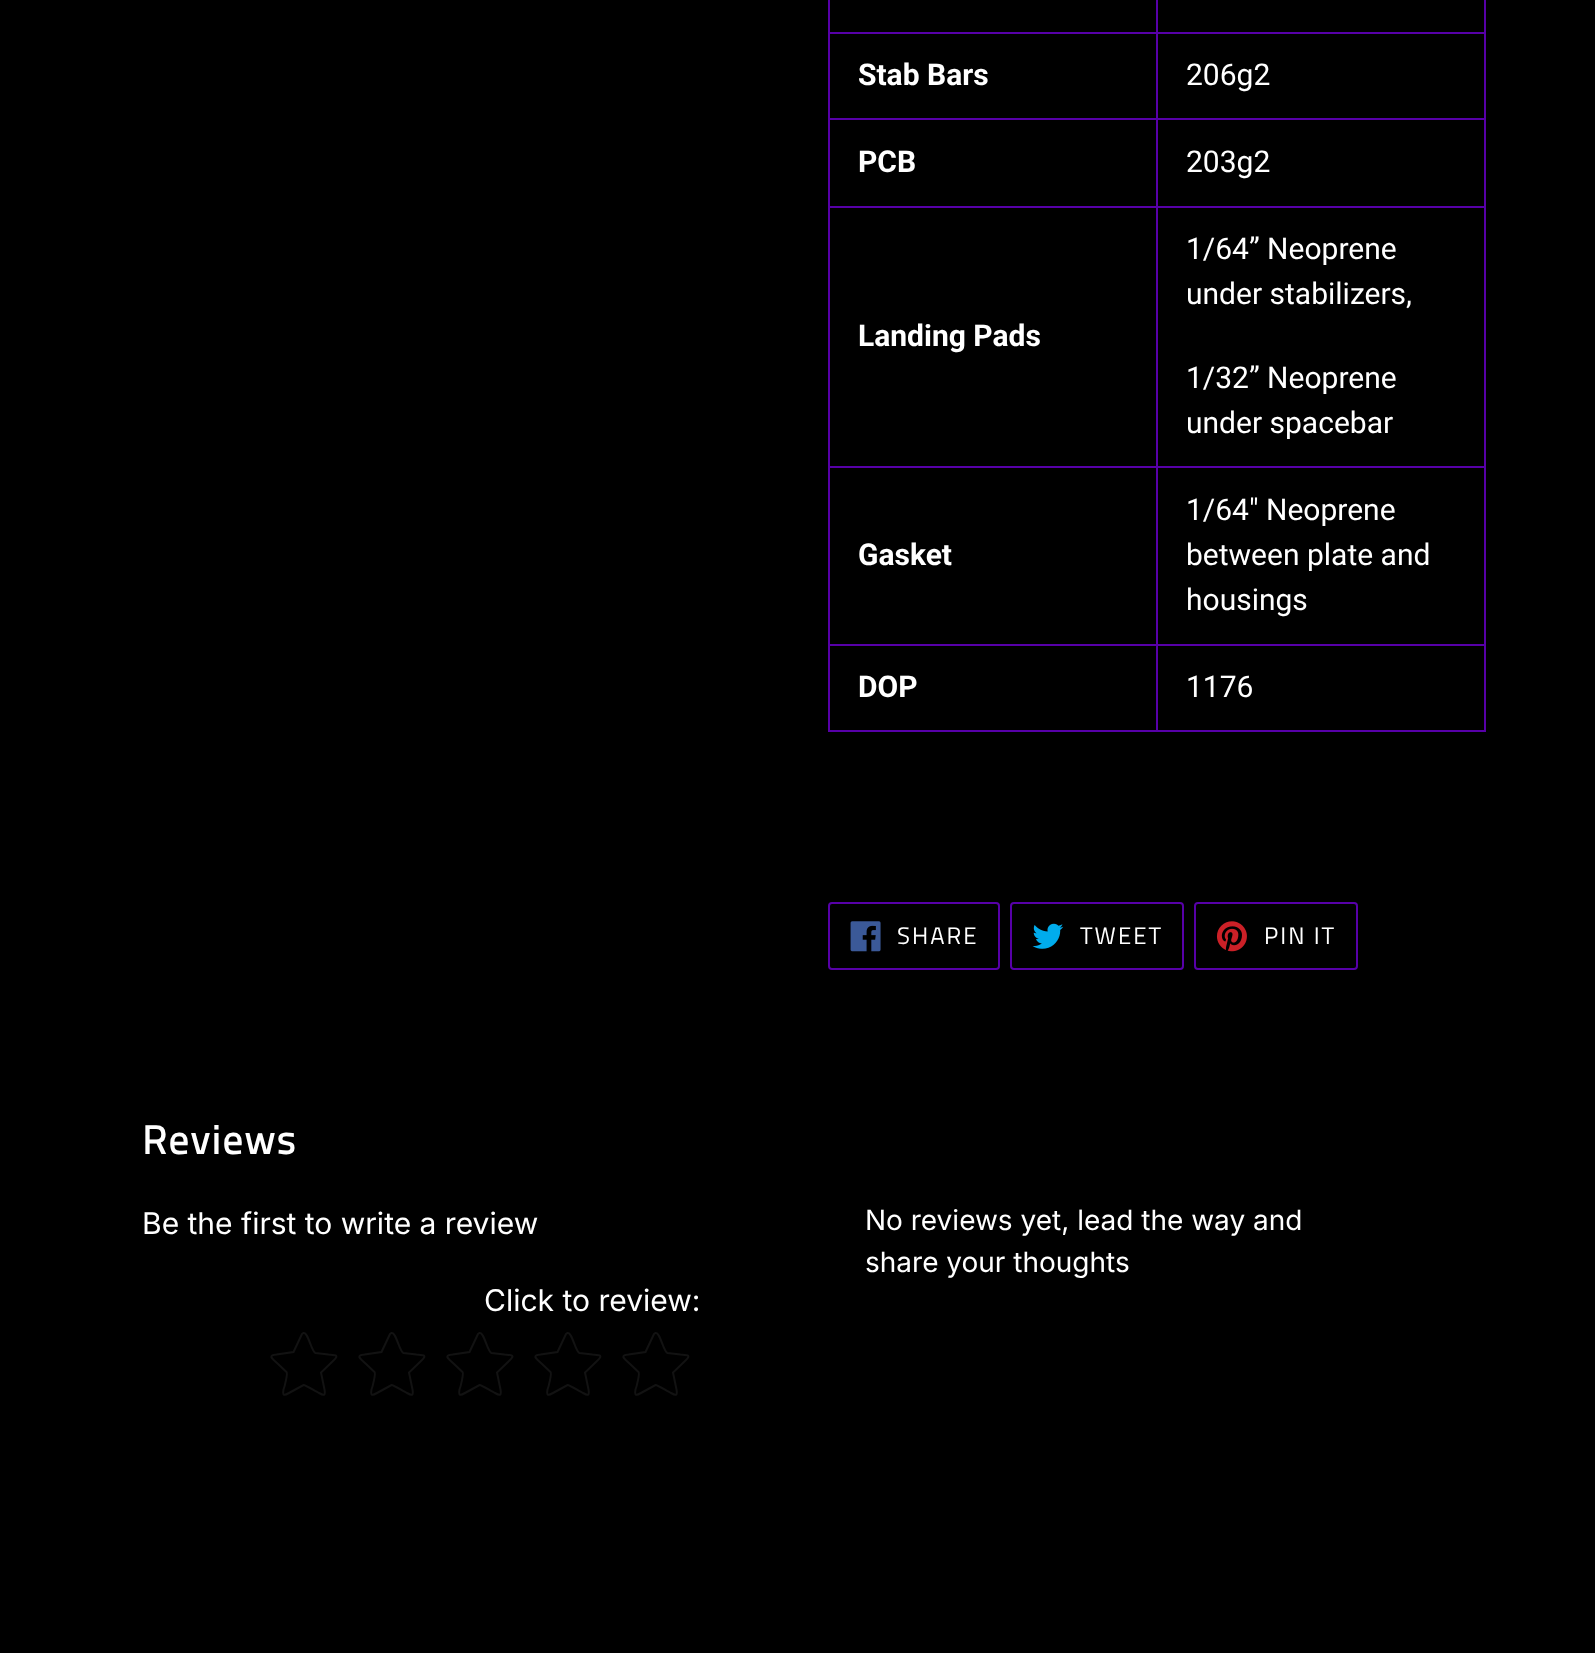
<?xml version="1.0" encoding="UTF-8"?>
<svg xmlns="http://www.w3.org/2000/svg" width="1595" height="1653">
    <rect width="100%" height="100%" fill="#000000"/>
    <rect x="1156" y="32" width="330" height="2" fill="#5700A8"/>
    <rect x="1156" y="118" width="330" height="2" fill="#5700A8"/>
    <rect x="1156" y="206" width="330" height="2" fill="#5700A8"/>
    <rect x="1156" y="466" width="330" height="2" fill="#5700A8"/>
    <rect x="1156" y="644" width="330" height="2" fill="#5700A8"/>
    <rect x="1484" y="644" width="2" height="88" fill="#5700A8"/>
    <rect x="1156" y="730" width="330" height="2" fill="#5700A8"/>
    <rect x="1156" y="644" width="2" height="88" fill="#5700A8"/>
    <rect x="828" y="644" width="330" height="2" fill="#5700A8"/>
    <rect x="1156" y="466" width="2" height="180" fill="#5700A8"/>
    <rect x="828" y="466" width="330" height="2" fill="#5700A8"/>
    <rect x="1156" y="206" width="2" height="262" fill="#5700A8"/>
    <rect x="828" y="206" width="330" height="2" fill="#5700A8"/>
    <rect x="1156" y="118" width="2" height="90" fill="#5700A8"/>
    <rect x="828" y="118" width="330" height="2" fill="#5700A8"/>
    <rect x="1156" y="32" width="2" height="88" fill="#5700A8"/>
    <rect x="828" y="32" width="330" height="2" fill="#5700A8"/>
    <rect x="1156" y="0" width="2" height="34" fill="#5700A8"/>
    <rect x="828" y="730" width="330" height="2" fill="#5700A8"/>
    <rect x="828" y="644" width="2" height="88" fill="#5700A8"/>
    <rect x="828" y="466" width="2" height="180" fill="#5700A8"/>
    <rect x="828" y="206" width="2" height="262" fill="#5700A8"/>
    <rect x="828" y="118" width="2" height="90" fill="#5700A8"/>
    <rect x="828" y="0" width="2" height="120" fill="#5700A8"/>
    <text x="858" y="85" font-family="Roboto" font-size="30" font-weight="700" fill="#FFFFFF">Stab Bars</text>
    <rect x="1484" y="466" width="2" height="180" fill="#5700A8"/>
    <rect x="1484" y="206" width="2" height="262" fill="#5700A8"/>
    <rect x="1484" y="118" width="2" height="90" fill="#5700A8"/>
    <rect x="1484" y="0" width="2" height="120" fill="#5700A8"/>
    <text x="1186" y="85" font-family="Roboto" font-size="30" fill="#FFFFFF">206g2</text>
    <text x="858" y="172" font-family="Roboto" font-size="30" font-weight="700" fill="#FFFFFF">PCB</text>
    <text x="1186" y="172" font-family="Roboto" font-size="30" fill="#FFFFFF">203g2</text>
    <text x="858" y="346" font-family="Roboto" font-size="30" font-weight="700" fill="#FFFFFF">Landing Pads</text>
    <text font-family="Roboto" font-size="30" fill="#FFFFFF">
        <tspan x="1186" y="259">1/64” Neoprene</tspan>
        <tspan x="1186" y="304">under stabilizers,</tspan>
    </text>
    <text font-family="Roboto" font-size="30" fill="#FFFFFF">
        <tspan x="1186" y="388">1/32” Neoprene</tspan>
        <tspan x="1186" y="433">under spacebar</tspan>
    </text>
    <text x="858" y="565" font-family="Roboto" font-size="30" font-weight="700" fill="#FFFFFF">Gasket</text>
    <text font-family="Roboto" font-size="30" fill="#FFFFFF">
        <tspan x="1186" y="520">1/64" Neoprene</tspan>
        <tspan x="1186" y="565">between plate and</tspan>
        <tspan x="1186" y="610">housings</tspan>
    </text>
    <text x="858" y="697" font-family="Roboto" font-size="30" font-weight="700" fill="#FFFFFF">DOP</text>
    <text x="1186" y="697" font-family="Roboto" font-size="30" fill="#FFFFFF">1176</text>
    <rect x="829" y="903" width="170" height="66" rx="3" fill="none" stroke="#5700A8" stroke-width="2"/>
    <image x="850" y="921" width="31" height="31" href="img_01.png"/>
    <text x="897" y="944" font-family="Titillium Web" font-size="24" letter-spacing="2" fill="#FFFFFF">SHARE</text>
    <rect x="1011" y="903" width="172" height="66" rx="3" fill="none" stroke="#5700A8" stroke-width="2"/>
    <image x="1032" y="923" width="32" height="26" href="img_02.png"/>
    <text x="1080" y="944" font-family="Titillium Web" font-size="24" letter-spacing="2" fill="#FFFFFF">TWEET</text>
    <rect x="1195" y="903" width="162" height="66" rx="3" fill="none" stroke="#5700A8" stroke-width="2"/>
    <image x="1216" y="921" width="31" height="31" href="img_03.png"/>
    <text x="1264" y="944" font-family="Titillium Web" font-size="24" letter-spacing="2" fill="#FFFFFF">PIN IT</text>
    <text x="142" y="1154" font-family="Titillium Web" font-size="40" font-weight="700" letter-spacing="2" fill="#FFFFFF">Reviews</text>
    <text x="142" y="1234" font-family="Inter" font-size="30" fill="#FFFFFF">Be the first to write a review</text>
    <text x="484" y="1311" font-family="Inter" font-size="30" fill="#FFFFFF">Click to review:</text>
    <path d="M 302 1334 L 303.5 1333 C 308 1331.5 311.5 1352 315.5 1353 L 328.5 1354.5 C 334.5 1355 340 1354.5 333.5 1360.5 L 321 1372.5 L 324.5 1389.5 C 325.5 1395.5 324.5 1396 319 1393 C 316.5 1392 305.5 1385 303.5 1385 L 289 1393 C 283.5 1396 282.5 1395.5 283.5 1389.5 C 284.5 1387 288 1373.5 286.5 1372 L 277 1363 C 272 1358.5 267.5 1355.5 276.5 1354.5 L 293.5 1352 Z" fill="none" stroke="#121212" stroke-width="2"/>
    <path d="M 390 1334 L 391.5 1333 C 396 1331.5 399.5 1352 403.5 1353 L 416.5 1354.5 C 422.5 1355 428 1354.5 421.5 1360.5 L 409 1372.5 L 412.5 1389.5 C 413.5 1395.5 412.5 1396 407 1393 C 404.5 1392 393.5 1385 391.5 1385 L 377 1393 C 371.5 1396 370.5 1395.5 371.5 1389.5 C 372.5 1387 376 1373.5 374.5 1372 L 365 1363 C 360 1358.5 355.5 1355.5 364.5 1354.5 L 381.5 1352 Z" fill="none" stroke="#121212" stroke-width="2"/>
    <path d="M 478 1334 L 479.5 1333 C 484 1331.5 487.5 1352 491.5 1353 L 504.5 1354.5 C 510.5 1355 516 1354.5 509.5 1360.5 L 497 1372.5 L 500.5 1389.5 C 501.5 1395.5 500.5 1396 495 1393 C 492.5 1392 481.5 1385 479.5 1385 L 465 1393 C 459.5 1396 458.5 1395.5 459.5 1389.5 C 460.5 1387 464 1373.5 462.5 1372 L 453 1363 C 448 1358.5 443.5 1355.5 452.5 1354.5 L 469.5 1352 Z" fill="none" stroke="#121212" stroke-width="2"/>
    <path d="M 566 1334 L 567.5 1333 C 572 1331.5 575.5 1352 579.5 1353 L 592.5 1354.5 C 598.5 1355 604 1354.5 597.5 1360.5 L 585 1372.5 L 588.5 1389.5 C 589.5 1395.5 588.5 1396 583 1393 C 580.5 1392 569.5 1385 567.5 1385 L 553 1393 C 547.5 1396 546.5 1395.5 547.5 1389.5 C 548.5 1387 552 1373.5 550.5 1372 L 541 1363 C 536 1358.5 531.5 1355.5 540.5 1354.5 L 557.5 1352 Z" fill="none" stroke="#121212" stroke-width="2"/>
    <path d="M 654 1334 L 655.5 1333 C 660 1331.5 663.5 1352 667.5 1353 L 680.5 1354.5 C 686.5 1355 692 1354.5 685.5 1360.5 L 673 1372.5 L 676.5 1389.5 C 677.5 1395.5 676.5 1396 671 1393 C 668.5 1392 657.5 1385 655.5 1385 L 641 1393 C 635.5 1396 634.5 1395.5 635.5 1389.5 C 636.5 1387 640 1373.5 638.5 1372 L 629 1363 C 624 1358.5 619.5 1355.5 628.5 1354.5 L 645.5 1352 Z" fill="none" stroke="#121212" stroke-width="2"/>
    <text font-family="Inter" font-size="28" fill="#FFFFFF">
        <tspan x="865" y="1230">No reviews yet, lead the way and</tspan>
        <tspan x="865" y="1272">share your thoughts</tspan>
    </text>
</svg>
